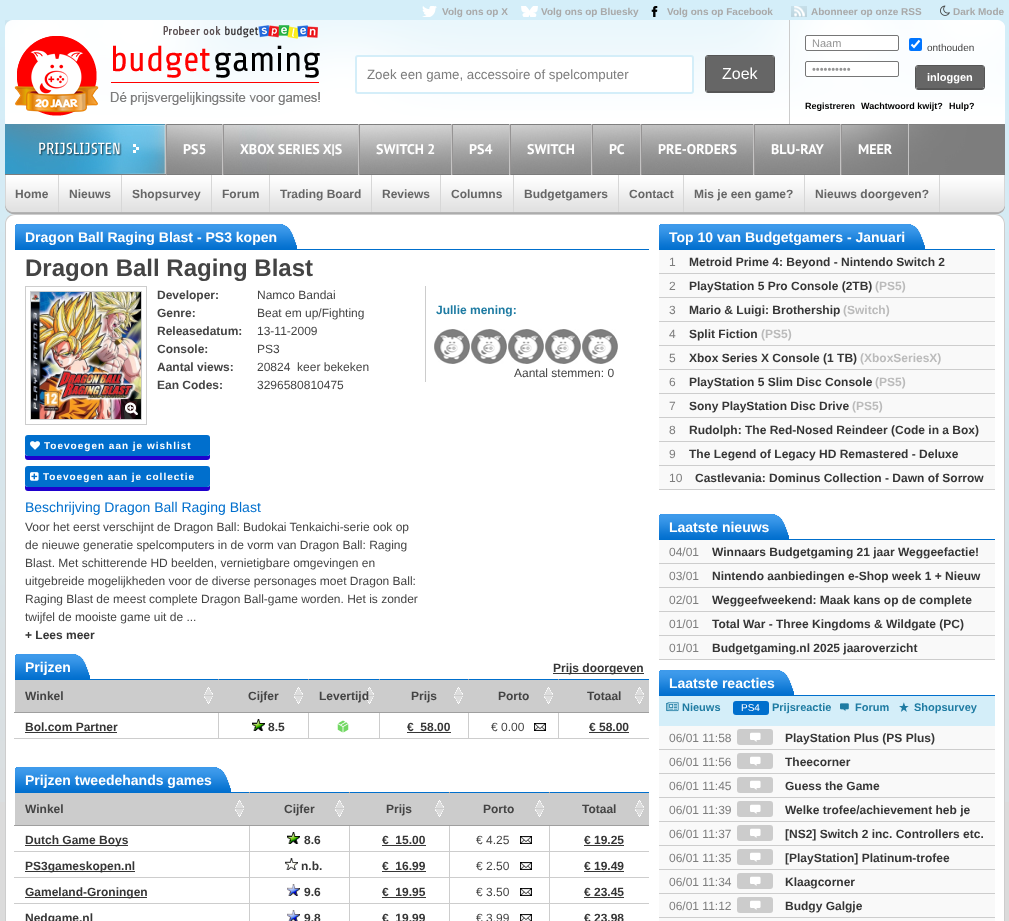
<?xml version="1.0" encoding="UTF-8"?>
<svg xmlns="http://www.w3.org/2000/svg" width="1009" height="921">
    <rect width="100%" height="100%" fill="#DBDBDB"/>
    <image x="0" y="0" width="1009" height="802" href="img_01.png"/>
    <image x="422" y="6" width="15" height="11" href="img_02.png"/>
    <text x="442" y="15" font-family="Liberation Sans" font-size="10" font-weight="700" fill="#A9A9A9">Volg ons op X</text>
    <image x="521" y="6" width="17" height="11" href="img_03.png"/>
    <text x="541" y="15" font-family="Liberation Sans" font-size="10" font-weight="700" fill="#A9A9A9">Volg ons op Bluesky</text>
    <image x="651" y="6" width="7" height="11" href="img_04.png"/>
    <text x="667" y="15" font-family="Liberation Sans" font-size="10" font-weight="700" fill="#A9A9A9">Volg ons op Facebook</text>
    <image x="791" y="6" width="16" height="11" href="img_05.png"/>
    <text x="811" y="15" font-family="Liberation Sans" font-size="10" font-weight="700" fill="#A9A9A9">Abonneer op onze RSS</text>
    <image x="940" y="5" width="10" height="11" href="img_06.png"/>
    <text x="953" y="15" font-family="Liberation Sans" font-size="10" font-weight="700" fill="#A9A9A9">Dark Mode</text>
    <image x="5" y="20" width="1000" height="104" href="img_07.png"/>
    <image x="14" y="36" width="306" height="80" href="img_09.png"/>
    <image x="163" y="25" width="155" height="14" href="img_08.png"/>
    <rect x="356" y="56" width="337" height="37" rx="2" fill="#FFFFFF" stroke="#D4EEF9" stroke-width="2"/>
    <text x="367" y="79" font-family="Liberation Sans" font-size="13.3" fill="#7D7D7D">Zoek een game, accessoire of spelcomputer</text>
    <path d="M 708 56 H 772 C 773 56 774 57 774 58 V 90 C 774 91 773 91 772 91 H 708 C 707 91 706 91 706 90 V 58 C 706 57 707 56 708 56 Z" fill="#666666"/>
    <rect x="705.5" y="55.5" width="69" height="37" rx="2.5" fill="none" stroke="#555555"/>
    <rect x="707" y="91" width="67" height="1" fill="#555555"/>
    <text x="722" y="79" font-family="Liberation Sans" font-size="16" fill="#FFFFFF">Zoek</text>
    <rect x="789" y="20" width="1" height="104" fill="#CCCCCC"/>
    <rect x="805.5" y="35.5" width="93" height="15" rx="1.5" fill="#FFFFFF" stroke="#767676"/>
    <text x="812" y="47" font-family="Liberation Sans" font-size="11" fill="#959595">Naam</text>
    <rect x="805.5" y="61.5" width="93" height="15" rx="1.5" fill="#FFFFFF" stroke="#767676"/>
    <text x="812" y="73" font-family="Liberation Sans" font-size="11" fill="#959595">••••••••••</text>
    <rect x="909" y="38" width="13" height="13" rx="2" fill="#0075FF"/>
    <path d="M 911.5 44.5 L 914 47 L 919.5 40.5" fill="none" stroke="#FFFFFF" stroke-width="2.1"/>
    <text x="927" y="51" font-family="Liberation Sans" font-size="10" fill="#444444">onthouden</text>
    <path d="M 918 66 H 983 C 985 68 984 72 984 74 C 984 91 988 88 971 88 H 929 C 912 88 916 91 916 74 C 916 73 915 66 918 66 Z" fill="#666666"/>
    <rect x="915.5" y="65.5" width="69" height="24" rx="2.5" fill="none" stroke="#555555"/>
    <rect x="917" y="88" width="67" height="1" fill="#555555"/>
    <text x="927" y="81" font-family="Liberation Sans" font-size="11" font-weight="700" fill="#FFFFFF">inloggen</text>
    <text x="805" y="109" font-family="Liberation Sans" font-size="9" font-weight="700" fill="#000000">Registreren</text>
    <text x="861" y="109" font-family="Liberation Sans" font-size="9" font-weight="700" fill="#000000">Wachtwoord kwijt?</text>
    <text x="949" y="109" font-family="Liberation Sans" font-size="9" font-weight="700" fill="#000000">Hulp?</text>
    <image x="5" y="124" width="1000" height="50" href="img_10.png"/>
    <rect x="165" y="124" width="1" height="50" fill="#C4C3C3"/>
    <image x="5" y="174" width="1000" height="40" href="img_11.png"/>
    <rect x="222" y="124" width="1" height="51" fill="#C4C3C3"/>
    <rect x="166" y="124" width="1" height="51" fill="#969494"/>
    <text x="183" y="154" font-family="PT Sans" font-size="14" font-weight="700" fill="#FFFFFF">PS5</text>
    <rect x="358" y="124" width="1" height="51" fill="#C4C3C3"/>
    <rect x="223" y="124" width="1" height="51" fill="#969494"/>
    <rect x="239" y="124" width="22" height="1" fill="#807E7E"/>
    <text x="240" y="154" font-family="PT Sans" font-size="14" font-weight="700" fill="#FFFFFF">XBOX SERIES X|S</text>
    <rect x="451" y="124" width="1" height="51" fill="#C4C3C3"/>
    <rect x="359" y="124" width="1" height="51" fill="#969494"/>
    <text x="376" y="154" font-family="PT Sans" font-size="14" font-weight="700" fill="#FFFFFF">SWITCH 2</text>
    <rect x="509" y="124" width="1" height="51" fill="#C4C3C3"/>
    <rect x="452" y="124" width="1" height="51" fill="#969494"/>
    <text x="469" y="154" font-family="PT Sans" font-size="14" font-weight="700" fill="#FFFFFF">PS4</text>
    <rect x="591" y="124" width="1" height="51" fill="#C4C3C3"/>
    <rect x="510" y="124" width="1" height="51" fill="#969494"/>
    <text x="527" y="154" font-family="PT Sans" font-size="14" font-weight="700" fill="#FFFFFF">SWITCH</text>
    <rect x="640" y="124" width="1" height="51" fill="#C4C3C3"/>
    <rect x="592" y="124" width="1" height="51" fill="#969494"/>
    <text x="609" y="154" font-family="PT Sans" font-size="14" font-weight="700" fill="#FFFFFF">PC</text>
    <rect x="753" y="124" width="1" height="51" fill="#C4C3C3"/>
    <rect x="641" y="124" width="1" height="51" fill="#969494"/>
    <text x="658" y="154" font-family="PT Sans" font-size="14" font-weight="700" fill="#FFFFFF">PRE-ORDERS</text>
    <rect x="840" y="124" width="1" height="51" fill="#C4C3C3"/>
    <rect x="754" y="124" width="1" height="51" fill="#969494"/>
    <text x="771" y="154" font-family="PT Sans" font-size="14" font-weight="700" fill="#FFFFFF">BLU-RAY</text>
    <rect x="908" y="124" width="1" height="51" fill="#C4C3C3"/>
    <rect x="841" y="124" width="1" height="51" fill="#969494"/>
    <text x="858" y="154" font-family="PT Sans" font-size="14" font-weight="700" fill="#FFFFFF">MEER</text>
    <rect x="58" y="175" width="1" height="37" fill="#D7D7D7"/>
    <text x="15" y="198" font-family="Liberation Sans" font-size="12" font-weight="700" fill="#666666">Home</text>
    <rect x="121" y="175" width="1" height="37" fill="#D7D7D7"/>
    <text x="69" y="198" font-family="Liberation Sans" font-size="12" font-weight="700" fill="#666666">Nieuws</text>
    <rect x="211" y="175" width="1" height="37" fill="#D7D7D7"/>
    <text x="132" y="198" font-family="Liberation Sans" font-size="12" font-weight="700" fill="#666666">Shopsurvey</text>
    <rect x="269" y="175" width="1" height="37" fill="#D7D7D7"/>
    <text x="222" y="198" font-family="Liberation Sans" font-size="12" font-weight="700" fill="#666666">Forum</text>
    <rect x="371" y="175" width="1" height="37" fill="#D7D7D7"/>
    <text x="280" y="198" font-family="Liberation Sans" font-size="12" font-weight="700" fill="#666666">Trading Board</text>
    <rect x="440" y="175" width="1" height="37" fill="#D7D7D7"/>
    <text x="382" y="198" font-family="Liberation Sans" font-size="12" font-weight="700" fill="#666666">Reviews</text>
    <rect x="513" y="175" width="1" height="37" fill="#D7D7D7"/>
    <text x="451" y="198" font-family="Liberation Sans" font-size="12" font-weight="700" fill="#666666">Columns</text>
    <rect x="618" y="175" width="1" height="37" fill="#D7D7D7"/>
    <text x="524" y="198" font-family="Liberation Sans" font-size="12" font-weight="700" fill="#666666">Budgetgamers</text>
    <rect x="683" y="175" width="1" height="37" fill="#D7D7D7"/>
    <text x="629" y="198" font-family="Liberation Sans" font-size="12" font-weight="700" fill="#666666">Contact</text>
    <rect x="804" y="175" width="1" height="37" fill="#D7D7D7"/>
    <text x="694" y="198" font-family="Liberation Sans" font-size="12" font-weight="700" fill="#666666">Mis je een game?</text>
    <rect x="939" y="175" width="1" height="37" fill="#D7D7D7"/>
    <text x="815" y="198" font-family="Liberation Sans" font-size="12" font-weight="700" fill="#666666">Nieuws doorgeven?</text>
    <path d="M 15 214 H 995 C 1000.5 214 1005 218.5 1005 224 V 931 H 5 V 224 C 5 218.5 9.5 214 15 214 Z" fill="#FFFFFF"/>
    <path d="M 15 214 H 995 C 1001 214 1005 218 1005 224 V 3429 H 5 V 224 C 5 218 9 214 15 214 Z M 15 215 H 995 C 1000 215 1004 219 1004 224 V 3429 H 6 V 224 C 6 219 10 215 15 215 Z" fill="#CDCDCD" fill-rule="evenodd"/>
    <rect x="15" y="249" width="634" height="1" fill="#006FCD"/>
    <image x="25" y="224" width="272" height="25" href="img_12.png"/>
    <image x="15" y="224" width="10" height="25" href="img_13.png"/>
    <text x="25" y="242" font-family="Liberation Sans" font-size="14" font-weight="700" fill="#FFFFFF">Dragon Ball Raging Blast - PS3 kopen</text>
    <text x="25" y="276" font-family="Liberation Sans" font-size="24" font-weight="700" fill="#444444">Dragon Ball Raging Blast</text>
    <rect x="25.5" y="286.5" width="121" height="138" fill="none" stroke="#CDCDCD"/>
    <rect x="30.5" y="291.5" width="111" height="128" fill="none" stroke="#CDCDCD"/>
    <image x="31" y="292" width="110" height="127" href="img_14.png"/>
    <image x="121" y="399" width="20" height="20" href="img_15.png"/>
    <text x="157" y="299" font-family="Liberation Sans" font-size="12" font-weight="700" fill="#444444">Developer:</text>
    <text x="257" y="299" font-family="Liberation Sans" font-size="12" fill="#444444">Namco Bandai</text>
    <text x="157" y="317" font-family="Liberation Sans" font-size="12" font-weight="700" fill="#444444">Genre:</text>
    <text x="257" y="317" font-family="Liberation Sans" font-size="12" fill="#444444">Beat em up/Fighting</text>
    <text x="157" y="335" font-family="Liberation Sans" font-size="12" font-weight="700" fill="#444444">Releasedatum:</text>
    <text x="257" y="335" font-family="Liberation Sans" font-size="12" fill="#444444">13-11-2009</text>
    <text x="157" y="353" font-family="Liberation Sans" font-size="12" font-weight="700" fill="#444444">Console:</text>
    <text x="257" y="353" font-family="Liberation Sans" font-size="12" fill="#444444">PS3</text>
    <text x="157" y="371" font-family="Liberation Sans" font-size="12" font-weight="700" fill="#444444">Aantal views:</text>
    <text x="257" y="371" font-family="Liberation Sans" font-size="12" fill="#444444" xml:space="preserve">20824  keer bekeken</text>
    <text x="157" y="389" font-family="Liberation Sans" font-size="12" font-weight="700" fill="#444444">Ean Codes:</text>
    <text x="257" y="389" font-family="Liberation Sans" font-size="12" fill="#444444">3296580810475</text>
    <path d="M 25 453 V 457 C 25 459 26 460 28 460 H 207 C 209 460 210 459 210 457 V 453 C 210 455 209 456 207 456 H 28 C 26 456 25 455 25 453 Z" fill="#1F00CD"/>
    <rect x="25" y="435" width="185" height="21" rx="3" fill="#006FCD"/>
    <image x="30" y="441" width="10" height="9" href="img_16.png"/>
    <text x="44" y="449" font-family="Liberation Sans" font-size="10" font-weight="700" letter-spacing="1" fill="#FFFFFF">Toevoegen aan je wishlist</text>
    <path d="M 25 484 V 488 C 25 490 26 491 28 491 H 207 C 209 491 210 490 210 488 V 484 C 210 486 209 487 207 487 H 28 C 26 487 25 486 25 484 Z" fill="#1F00CD"/>
    <rect x="25" y="466" width="185" height="21" rx="3" fill="#006FCD"/>
    <image x="30" y="472" width="9" height="9" href="img_17.png"/>
    <text x="43" y="480" font-family="Liberation Sans" font-size="10" font-weight="700" letter-spacing="1" fill="#FFFFFF">Toevoegen aan je collectie</text>
    <text x="25" y="512" font-family="Liberation Sans" font-size="14" fill="#006FCD">Beschrijving Dragon Ball Raging Blast</text>
    <text font-family="Liberation Sans" font-size="12" fill="#444444">
        <tspan x="25" y="531">Voor het eerst verschijnt de Dragon Ball: Budokai Tenkaichi-serie ook op</tspan>
        <tspan x="25" y="549">de nieuwe generatie spelcomputers in de vorm van Dragon Ball: Raging</tspan>
        <tspan x="25" y="567">Blast. Met schitterende HD beelden, vernietigbare omgevingen en</tspan>
        <tspan x="25" y="585">uitgebreide mogelijkheden voor de diverse personages moet Dragon Ball:</tspan>
        <tspan x="25" y="603">Raging Blast de meest complete Dragon Ball-game worden. Het is zonder</tspan>
        <tspan x="25" y="621">twijfel de mooiste game uit de ...</tspan>
    </text>
    <text x="25" y="639" font-family="Liberation Sans" font-size="12" font-weight="700" fill="#363636">+ Lees meer</text>
    <rect x="425" y="286" width="1" height="96" fill="#CCCCCC"/>
    <text x="436" y="314" font-family="Liberation Sans" font-size="12" font-weight="700" fill="#1E7BA2">Jullie mening:</text>
    <image x="434" y="329" width="36" height="35" href="img_18.png"/>
    <image x="471" y="329" width="36" height="35" href="img_19.png"/>
    <image x="508" y="329" width="36" height="35" href="img_19.png"/>
    <image x="545" y="329" width="36" height="35" href="img_19.png"/>
    <image x="582" y="329" width="36" height="35" href="img_19.png"/>
    <text x="514" y="377" font-family="Liberation Sans" font-size="12" fill="#444444">Aantal stemmen: 0</text>
    <rect x="15" y="679" width="634" height="1" fill="#006FCD"/>
    <image x="25" y="654" width="65" height="25" href="img_20.png"/>
    <image x="15" y="654" width="10" height="25" href="img_21.png"/>
    <text x="25" y="672" font-family="Liberation Sans" font-size="14" font-weight="700" fill="#FFFFFF">Prijzen</text>
    <rect x="553" y="673" width="91" height="1" fill="#363636"/>
    <text x="553" y="672" font-family="Liberation Sans" font-size="12" font-weight="700" fill="#363636">Prijs doorgeven</text>
    <rect x="15" y="680" width="634" height="32" fill="#CCCCCC"/>
    <image x="204" y="687" width="9" height="17" href="img_22.png"/>
    <text x="25" y="700" font-family="Liberation Sans" font-size="12" font-weight="700" fill="#444444">Winkel</text>
    <rect x="218" y="679" width="1" height="1" fill="#9F9F9F"/>
    <image x="294" y="687" width="9" height="17" href="img_22.png"/>
    <text x="248" y="700" font-family="Liberation Sans" font-size="12" font-weight="700" fill="#444444">Cijfer</text>
    <rect x="308" y="679" width="1" height="1" fill="#9F9F9F"/>
    <image x="365" y="687" width="9" height="17" href="img_22.png"/>
    <text x="319" y="700" font-family="Liberation Sans" font-size="12" font-weight="700" fill="#444444">Levertijd</text>
    <rect x="379" y="679" width="1" height="1" fill="#9F9F9F"/>
    <image x="454" y="687" width="9" height="17" href="img_22.png"/>
    <text x="411" y="700" font-family="Liberation Sans" font-size="12" font-weight="700" fill="#444444">Prijs</text>
    <rect x="468" y="679" width="1" height="1" fill="#9F9F9F"/>
    <image x="544" y="687" width="9" height="17" href="img_22.png"/>
    <text x="498" y="700" font-family="Liberation Sans" font-size="12" font-weight="700" fill="#444444">Porto</text>
    <rect x="558" y="738" width="91" height="1" fill="#CDCDCD"/>
    <rect x="558" y="712" width="1" height="27" fill="#CDCDCD"/>
    <rect x="468" y="738" width="91" height="1" fill="#CDCDCD"/>
    <rect x="468" y="712" width="1" height="27" fill="#CDCDCD"/>
    <rect x="379" y="738" width="90" height="1" fill="#CDCDCD"/>
    <rect x="379" y="712" width="1" height="27" fill="#CDCDCD"/>
    <rect x="308" y="738" width="72" height="1" fill="#CDCDCD"/>
    <rect x="308" y="712" width="1" height="27" fill="#CDCDCD"/>
    <rect x="218" y="738" width="91" height="1" fill="#CDCDCD"/>
    <rect x="218" y="712" width="1" height="27" fill="#CDCDCD"/>
    <rect x="14" y="712" width="635" height="1" fill="#9F9F9F"/>
    <rect x="558" y="679" width="1" height="1" fill="#9F9F9F"/>
    <image x="635" y="687" width="9" height="17" href="img_22.png"/>
    <text x="587" y="700" font-family="Liberation Sans" font-size="12" font-weight="700" fill="#444444">Totaal</text>
    <rect x="14" y="738" width="205" height="1" fill="#CDCDCD"/>
    <text x="25" y="731" font-family="Liberation Sans" font-size="12" font-weight="700" fill="#363636">Bol.com Partner</text>
    <rect x="25" y="732" width="92" height="1" fill="#363636"/>
    <image x="252" y="719" width="13" height="12" href="img_23.png"/>
    <text x="268" y="731" font-family="Liberation Sans" font-size="12" font-weight="700" fill="#363636">8.5</text>
    <image x="337" y="720" width="12" height="13" href="img_24.png"/>
    <text x="407" y="731" font-family="Liberation Sans" font-size="12" font-weight="700" fill="#363636" xml:space="preserve">€  58.00</text>
    <rect x="407" y="732" width="44" height="1" fill="#363636"/>
    <text x="491" y="731" font-family="Liberation Sans" font-size="12" fill="#444444">€ 0.00</text>
    <image x="534" y="723" width="12" height="8" href="img_25.png"/>
    <text x="589" y="731" font-family="Liberation Sans" font-size="12" font-weight="700" fill="#363636">€ 58.00</text>
    <rect x="589" y="732" width="40" height="1" fill="#363636"/>
    <rect x="15" y="792" width="634" height="1" fill="#006FCD"/>
    <image x="25" y="767" width="206" height="25" href="img_26.png"/>
    <image x="15" y="767" width="10" height="25" href="img_13.png"/>
    <text x="25" y="785" font-family="Liberation Sans" font-size="14" font-weight="700" fill="#FFFFFF">Prijzen tweedehands games</text>
    <rect x="15" y="793" width="634" height="32" fill="#CCCCCC"/>
    <image x="235" y="800" width="9" height="17" href="img_22.png"/>
    <text x="25" y="813" font-family="Liberation Sans" font-size="12" font-weight="700" fill="#444444">Winkel</text>
    <rect x="249" y="792" width="1" height="1" fill="#9F9F9F"/>
    <image x="335" y="800" width="9" height="17" href="img_22.png"/>
    <text x="284" y="813" font-family="Liberation Sans" font-size="12" font-weight="700" fill="#444444">Cijfer</text>
    <rect x="349" y="792" width="1" height="1" fill="#9F9F9F"/>
    <image x="435" y="800" width="9" height="17" href="img_22.png"/>
    <text x="386" y="813" font-family="Liberation Sans" font-size="12" font-weight="700" fill="#444444">Prijs</text>
    <rect x="449" y="792" width="1" height="1" fill="#9F9F9F"/>
    <image x="535" y="800" width="9" height="17" href="img_22.png"/>
    <text x="483" y="813" font-family="Liberation Sans" font-size="12" font-weight="700" fill="#444444">Porto</text>
    <rect x="549" y="903" width="1" height="18" fill="#CDCDCD"/>
    <rect x="549" y="903" width="100" height="1" fill="#CDCDCD"/>
    <rect x="549" y="877" width="1" height="27" fill="#CDCDCD"/>
    <rect x="549" y="877" width="100" height="1" fill="#CDCDCD"/>
    <rect x="549" y="851" width="1" height="27" fill="#CDCDCD"/>
    <rect x="549" y="851" width="100" height="1" fill="#CDCDCD"/>
    <rect x="549" y="825" width="1" height="27" fill="#CDCDCD"/>
    <rect x="449" y="903" width="1" height="18" fill="#CDCDCD"/>
    <rect x="449" y="903" width="101" height="1" fill="#CDCDCD"/>
    <rect x="449" y="877" width="1" height="27" fill="#CDCDCD"/>
    <rect x="449" y="877" width="101" height="1" fill="#CDCDCD"/>
    <rect x="449" y="851" width="1" height="27" fill="#CDCDCD"/>
    <rect x="449" y="851" width="101" height="1" fill="#CDCDCD"/>
    <rect x="449" y="825" width="1" height="27" fill="#CDCDCD"/>
    <rect x="349" y="903" width="1" height="18" fill="#CDCDCD"/>
    <rect x="349" y="903" width="101" height="1" fill="#CDCDCD"/>
    <rect x="349" y="877" width="1" height="27" fill="#CDCDCD"/>
    <rect x="349" y="877" width="101" height="1" fill="#CDCDCD"/>
    <rect x="349" y="851" width="1" height="27" fill="#CDCDCD"/>
    <rect x="349" y="851" width="101" height="1" fill="#CDCDCD"/>
    <rect x="349" y="825" width="1" height="27" fill="#CDCDCD"/>
    <rect x="249" y="903" width="1" height="18" fill="#CDCDCD"/>
    <rect x="249" y="903" width="101" height="1" fill="#CDCDCD"/>
    <rect x="249" y="877" width="1" height="27" fill="#CDCDCD"/>
    <rect x="249" y="877" width="101" height="1" fill="#CDCDCD"/>
    <rect x="249" y="851" width="1" height="27" fill="#CDCDCD"/>
    <rect x="249" y="851" width="101" height="1" fill="#CDCDCD"/>
    <rect x="249" y="825" width="1" height="27" fill="#CDCDCD"/>
    <rect x="14" y="825" width="635" height="1" fill="#9F9F9F"/>
    <rect x="549" y="792" width="1" height="1" fill="#9F9F9F"/>
    <image x="635" y="800" width="9" height="17" href="img_22.png"/>
    <text x="582" y="813" font-family="Liberation Sans" font-size="12" font-weight="700" fill="#444444">Totaal</text>
    <rect x="14" y="851" width="236" height="1" fill="#CDCDCD"/>
    <rect x="25" y="845" width="103" height="1" fill="#363636"/>
    <text x="25" y="844" font-family="Liberation Sans" font-size="12" font-weight="700" fill="#363636">Dutch Game Boys</text>
    <image x="287" y="832" width="13" height="12" href="img_27.png"/>
    <text x="304" y="844" font-family="Liberation Sans" font-size="12" font-weight="700" fill="#363636">8.6</text>
    <text x="382" y="844" font-family="Liberation Sans" font-size="12" font-weight="700" fill="#363636" xml:space="preserve">€  15.00</text>
    <rect x="382" y="845" width="44" height="1" fill="#363636"/>
    <text x="476" y="844" font-family="Liberation Sans" font-size="12" fill="#444444">€ 4.25</text>
    <image x="520" y="836" width="12" height="8" href="img_25.png"/>
    <text x="584" y="844" font-family="Liberation Sans" font-size="12" font-weight="700" fill="#363636">€ 19.25</text>
    <rect x="584" y="845" width="40" height="1" fill="#363636"/>
    <rect x="14" y="877" width="236" height="1" fill="#CDCDCD"/>
    <rect x="25" y="871" width="110" height="1" fill="#363636"/>
    <text x="25" y="870" font-family="Liberation Sans" font-size="12" font-weight="700" fill="#363636">PS3gameskopen.nl</text>
    <image x="285" y="858" width="13" height="12" href="img_28.png"/>
    <text x="301" y="870" font-family="Liberation Sans" font-size="12" font-weight="700" fill="#363636">n.b.</text>
    <text x="382" y="870" font-family="Liberation Sans" font-size="12" font-weight="700" fill="#363636" xml:space="preserve">€  16.99</text>
    <rect x="382" y="871" width="44" height="1" fill="#363636"/>
    <text x="476" y="870" font-family="Liberation Sans" font-size="12" fill="#444444">€ 2.50</text>
    <image x="520" y="862" width="12" height="8" href="img_25.png"/>
    <text x="584" y="870" font-family="Liberation Sans" font-size="12" font-weight="700" fill="#363636">€ 19.49</text>
    <rect x="584" y="871" width="40" height="1" fill="#363636"/>
    <rect x="14" y="903" width="236" height="1" fill="#CDCDCD"/>
    <rect x="25" y="897" width="122" height="1" fill="#363636"/>
    <text x="25" y="896" font-family="Liberation Sans" font-size="12" font-weight="700" fill="#363636">Gameland-Groningen</text>
    <image x="287" y="884" width="13" height="12" href="img_29.png"/>
    <text x="304" y="896" font-family="Liberation Sans" font-size="12" font-weight="700" fill="#363636">9.6</text>
    <text x="382" y="896" font-family="Liberation Sans" font-size="12" font-weight="700" fill="#363636" xml:space="preserve">€  19.95</text>
    <rect x="382" y="897" width="44" height="1" fill="#363636"/>
    <text x="476" y="896" font-family="Liberation Sans" font-size="12" fill="#444444">€ 3.50</text>
    <image x="520" y="888" width="12" height="8" href="img_25.png"/>
    <text x="584" y="896" font-family="Liberation Sans" font-size="12" font-weight="700" fill="#363636">€ 23.45</text>
    <rect x="584" y="897" width="40" height="1" fill="#363636"/>
    <text x="25" y="922" font-family="Liberation Sans" font-size="12" font-weight="700" fill="#363636">Nedgame.nl</text>
    <image x="287" y="910" width="13" height="11" href="img_30.png"/>
    <text x="304" y="922" font-family="Liberation Sans" font-size="12" font-weight="700" fill="#363636">9.8</text>
    <text x="382" y="922" font-family="Liberation Sans" font-size="12" font-weight="700" fill="#363636" xml:space="preserve">€  19.99</text>
    <text x="476" y="922" font-family="Liberation Sans" font-size="12" fill="#444444">€ 3.99</text>
    <image x="520" y="914" width="12" height="7" href="img_31.png"/>
    <text x="584" y="922" font-family="Liberation Sans" font-size="12" font-weight="700" fill="#363636">€ 23.98</text>
    <rect x="659" y="249" width="336" height="1" fill="#006FCD"/>
    <image x="669" y="224" width="256" height="25" href="img_32.png"/>
    <image x="659" y="224" width="10" height="25" href="img_13.png"/>
    <text x="669" y="242" font-family="Liberation Sans" font-size="14" font-weight="700" fill="#FFFFFF">Top 10 van Budgetgamers - Januari</text>
    <rect x="659" y="250" width="336" height="23" fill="#F9F9F9"/>
    <rect x="659" y="273" width="336" height="1" fill="#CDCDCD"/>
    <text x="669" y="266" font-family="Liberation Sans" font-size="12" fill="#7D7D7D">1</text>
    <text x="689" y="266" font-family="Liberation Sans" font-size="12" font-weight="700" fill="#363636">Metroid Prime 4: Beyond - Nintendo Switch 2</text>
    <rect x="659" y="274" width="336" height="23" fill="#F9F9F9"/>
    <rect x="659" y="297" width="336" height="1" fill="#CDCDCD"/>
    <text x="669" y="290" font-family="Liberation Sans" font-size="12" fill="#7D7D7D">2</text>
    <text x="689" y="290" font-family="Liberation Sans" font-size="12" font-weight="700" fill="#363636">PlayStation 5 Pro Console (2TB)</text>
    <text x="875" y="290" font-family="Liberation Sans" font-size="12" font-weight="700" fill="#BBBBBB">(PS5)</text>
    <rect x="659" y="298" width="336" height="23" fill="#F9F9F9"/>
    <rect x="659" y="321" width="336" height="1" fill="#CDCDCD"/>
    <text x="669" y="314" font-family="Liberation Sans" font-size="12" fill="#7D7D7D">3</text>
    <text x="689" y="314" font-family="Liberation Sans" font-size="12" font-weight="700" fill="#363636">Mario &amp; Luigi: Brothership</text>
    <text x="843" y="314" font-family="Liberation Sans" font-size="12" font-weight="700" fill="#BBBBBB">(Switch)</text>
    <rect x="659" y="322" width="336" height="23" fill="#F9F9F9"/>
    <rect x="659" y="345" width="336" height="1" fill="#CDCDCD"/>
    <text x="669" y="338" font-family="Liberation Sans" font-size="12" fill="#7D7D7D">4</text>
    <text x="689" y="338" font-family="Liberation Sans" font-size="12" font-weight="700" fill="#363636">Split Fiction</text>
    <text x="761" y="338" font-family="Liberation Sans" font-size="12" font-weight="700" fill="#BBBBBB">(PS5)</text>
    <rect x="659" y="346" width="336" height="23" fill="#F9F9F9"/>
    <rect x="659" y="369" width="336" height="1" fill="#CDCDCD"/>
    <text x="669" y="362" font-family="Liberation Sans" font-size="12" fill="#7D7D7D">5</text>
    <text x="689" y="362" font-family="Liberation Sans" font-size="12" font-weight="700" fill="#363636">Xbox Series X Console (1 TB)</text>
    <text x="860" y="362" font-family="Liberation Sans" font-size="12" font-weight="700" fill="#BBBBBB">(XboxSeriesX)</text>
    <rect x="659" y="370" width="336" height="23" fill="#F9F9F9"/>
    <rect x="659" y="393" width="336" height="1" fill="#CDCDCD"/>
    <text x="669" y="386" font-family="Liberation Sans" font-size="12" fill="#7D7D7D">6</text>
    <text x="689" y="386" font-family="Liberation Sans" font-size="12" font-weight="700" fill="#363636">PlayStation 5 Slim Disc Console</text>
    <text x="875" y="386" font-family="Liberation Sans" font-size="12" font-weight="700" fill="#BBBBBB">(PS5)</text>
    <rect x="659" y="394" width="336" height="23" fill="#F9F9F9"/>
    <rect x="659" y="417" width="336" height="1" fill="#CDCDCD"/>
    <text x="669" y="410" font-family="Liberation Sans" font-size="12" fill="#7D7D7D">7</text>
    <text x="689" y="410" font-family="Liberation Sans" font-size="12" font-weight="700" fill="#363636">Sony PlayStation Disc Drive</text>
    <text x="852" y="410" font-family="Liberation Sans" font-size="12" font-weight="700" fill="#BBBBBB">(PS5)</text>
    <rect x="659" y="418" width="336" height="23" fill="#F9F9F9"/>
    <rect x="659" y="441" width="336" height="1" fill="#CDCDCD"/>
    <text x="669" y="434" font-family="Liberation Sans" font-size="12" fill="#7D7D7D">8</text>
    <text x="689" y="434" font-family="Liberation Sans" font-size="12" font-weight="700" fill="#363636">Rudolph: The Red-Nosed Reindeer (Code in a Box)</text>
    <rect x="659" y="442" width="336" height="23" fill="#F9F9F9"/>
    <rect x="659" y="465" width="336" height="1" fill="#CDCDCD"/>
    <text x="669" y="458" font-family="Liberation Sans" font-size="12" fill="#7D7D7D">9</text>
    <text x="689" y="458" font-family="Liberation Sans" font-size="12" font-weight="700" fill="#363636">The Legend of Legacy HD Remastered - Deluxe</text>
    <rect x="659" y="466" width="336" height="23" fill="#F9F9F9"/>
    <rect x="659" y="489" width="336" height="1" fill="#CDCDCD"/>
    <text x="669" y="482" font-family="Liberation Sans" font-size="12" fill="#7D7D7D">10</text>
    <text x="695" y="482" font-family="Liberation Sans" font-size="12" font-weight="700" fill="#363636">Castlevania: Dominus Collection - Dawn of Sorrow</text>
    <rect x="659" y="539" width="336" height="1" fill="#006FCD"/>
    <image x="669" y="514" width="120" height="25" href="img_33.png"/>
    <image x="659" y="514" width="10" height="25" href="img_13.png"/>
    <text x="669" y="532" font-family="Liberation Sans" font-size="14" font-weight="700" fill="#FFFFFF">Laatste nieuws</text>
    <rect x="659" y="540" width="336" height="23" fill="#F9F9F9"/>
    <rect x="659" y="563" width="336" height="1" fill="#CDCDCD"/>
    <text x="669" y="556" font-family="Liberation Sans" font-size="12" fill="#7D7D7D">04/01</text>
    <text x="712" y="556" font-family="Liberation Sans" font-size="12" font-weight="700" fill="#363636">Winnaars Budgetgaming 21 jaar Weggeefactie!</text>
    <rect x="659" y="564" width="336" height="23" fill="#F9F9F9"/>
    <rect x="659" y="587" width="336" height="1" fill="#CDCDCD"/>
    <text x="669" y="580" font-family="Liberation Sans" font-size="12" fill="#7D7D7D">03/01</text>
    <text x="712" y="580" font-family="Liberation Sans" font-size="12" font-weight="700" fill="#363636">Nintendo aanbiedingen e-Shop week 1 + Nieuw</text>
    <rect x="659" y="588" width="336" height="23" fill="#F9F9F9"/>
    <rect x="659" y="611" width="336" height="1" fill="#CDCDCD"/>
    <text x="669" y="604" font-family="Liberation Sans" font-size="12" fill="#7D7D7D">02/01</text>
    <text x="712" y="604" font-family="Liberation Sans" font-size="12" font-weight="700" fill="#363636">Weggeefweekend: Maak kans op de complete</text>
    <rect x="659" y="612" width="336" height="23" fill="#F9F9F9"/>
    <rect x="659" y="635" width="336" height="1" fill="#CDCDCD"/>
    <text x="669" y="628" font-family="Liberation Sans" font-size="12" fill="#7D7D7D">01/01</text>
    <text x="712" y="628" font-family="Liberation Sans" font-size="12" font-weight="700" fill="#363636">Total War - Three Kingdoms &amp; Wildgate (PC)</text>
    <rect x="659" y="636" width="336" height="23" fill="#F9F9F9"/>
    <rect x="659" y="659" width="336" height="1" fill="#CDCDCD"/>
    <text x="669" y="652" font-family="Liberation Sans" font-size="12" fill="#7D7D7D">01/01</text>
    <text x="712" y="652" font-family="Liberation Sans" font-size="12" font-weight="700" fill="#363636">Budgetgaming.nl 2025 jaaroverzicht</text>
    <rect x="659" y="695" width="336" height="1" fill="#006FCD"/>
    <image x="669" y="670" width="125" height="25" href="img_34.png"/>
    <image x="659" y="670" width="10" height="25" href="img_35.png"/>
    <text x="669" y="688" font-family="Liberation Sans" font-size="14" font-weight="700" fill="#FFFFFF">Laatste reacties</text>
    <rect x="659" y="696" width="336" height="30" fill="#D4EEF9"/>
    <image x="666" y="702" width="13" height="10" href="img_36.png"/>
    <text x="682" y="711" font-family="Liberation Sans" font-size="11" font-weight="700" fill="#1E7BA2">Nieuws</text>
    <rect x="733" y="701" width="36" height="14" rx="3" fill="#006FCD"/>
    <text x="741" y="711" font-family="Liberation Sans" font-size="10" fill="#FFFFFF">PS4</text>
    <text x="772" y="711" font-family="Liberation Sans" font-size="11" font-weight="700" fill="#1E7BA2">Prijsreactie</text>
    <image x="840" y="703" width="9" height="8" href="img_37.png"/>
    <text x="855" y="711" font-family="Liberation Sans" font-size="11" font-weight="700" fill="#1E7BA2">Forum</text>
    <image x="899" y="702" width="10" height="10" href="img_38.png"/>
    <text x="914" y="711" font-family="Liberation Sans" font-size="11" font-weight="700" fill="#1E7BA2">Shopsurvey</text>
    <rect x="659" y="726" width="336" height="23" fill="#F9F9F9"/>
    <rect x="659" y="749" width="336" height="1" fill="#CDCDCD"/>
    <text x="669" y="742" font-family="Liberation Sans" font-size="12" fill="#7D7D7D">06/01 11:58</text>
    <rect x="737" y="729" width="36" height="16" rx="3" fill="#CCCCCC"/>
    <image x="750" y="732" width="11" height="10" href="img_39.png"/>
    <text x="785" y="742" font-family="Liberation Sans" font-size="12" font-weight="700" fill="#363636">PlayStation Plus (PS Plus)</text>
    <rect x="659" y="750" width="336" height="23" fill="#F9F9F9"/>
    <rect x="659" y="773" width="336" height="1" fill="#CDCDCD"/>
    <text x="669" y="766" font-family="Liberation Sans" font-size="12" fill="#7D7D7D">06/01 11:56</text>
    <rect x="737" y="753" width="36" height="16" rx="3" fill="#CCCCCC"/>
    <image x="750" y="756" width="11" height="10" href="img_39.png"/>
    <text x="785" y="766" font-family="Liberation Sans" font-size="12" font-weight="700" fill="#363636">Theecorner</text>
    <rect x="659" y="774" width="336" height="23" fill="#F9F9F9"/>
    <rect x="659" y="797" width="336" height="1" fill="#CDCDCD"/>
    <text x="669" y="790" font-family="Liberation Sans" font-size="12" fill="#7D7D7D">06/01 11:45</text>
    <rect x="737" y="777" width="36" height="16" rx="3" fill="#CCCCCC"/>
    <image x="750" y="780" width="11" height="10" href="img_39.png"/>
    <text x="785" y="790" font-family="Liberation Sans" font-size="12" font-weight="700" fill="#363636">Guess the Game</text>
    <rect x="659" y="798" width="336" height="23" fill="#F9F9F9"/>
    <rect x="659" y="821" width="336" height="1" fill="#CDCDCD"/>
    <text x="669" y="814" font-family="Liberation Sans" font-size="12" fill="#7D7D7D">06/01 11:39</text>
    <rect x="737" y="801" width="36" height="16" rx="3" fill="#CCCCCC"/>
    <image x="750" y="804" width="11" height="10" href="img_39.png"/>
    <text x="785" y="814" font-family="Liberation Sans" font-size="12" font-weight="700" fill="#363636">Welke trofee/achievement heb je</text>
    <rect x="659" y="822" width="336" height="23" fill="#F9F9F9"/>
    <rect x="659" y="845" width="336" height="1" fill="#CDCDCD"/>
    <text x="669" y="838" font-family="Liberation Sans" font-size="12" fill="#7D7D7D">06/01 11:37</text>
    <rect x="737" y="825" width="36" height="16" rx="3" fill="#CCCCCC"/>
    <image x="750" y="828" width="11" height="10" href="img_39.png"/>
    <text x="785" y="838" font-family="Liberation Sans" font-size="12" font-weight="700" fill="#363636">[NS2] Switch 2 inc. Controllers etc.</text>
    <rect x="659" y="846" width="336" height="23" fill="#F9F9F9"/>
    <rect x="659" y="869" width="336" height="1" fill="#CDCDCD"/>
    <text x="669" y="862" font-family="Liberation Sans" font-size="12" fill="#7D7D7D">06/01 11:35</text>
    <rect x="737" y="849" width="36" height="16" rx="3" fill="#CCCCCC"/>
    <image x="750" y="852" width="11" height="10" href="img_39.png"/>
    <text x="785" y="862" font-family="Liberation Sans" font-size="12" font-weight="700" fill="#363636">[PlayStation] Platinum-trofee</text>
    <rect x="659" y="870" width="336" height="23" fill="#F9F9F9"/>
    <rect x="659" y="893" width="336" height="1" fill="#CDCDCD"/>
    <text x="669" y="886" font-family="Liberation Sans" font-size="12" fill="#7D7D7D">06/01 11:34</text>
    <rect x="737" y="873" width="36" height="16" rx="3" fill="#CCCCCC"/>
    <image x="750" y="876" width="11" height="10" href="img_39.png"/>
    <text x="785" y="886" font-family="Liberation Sans" font-size="12" font-weight="700" fill="#363636">Klaagcorner</text>
    <rect x="659" y="894" width="336" height="23" fill="#F9F9F9"/>
    <rect x="659" y="917" width="336" height="1" fill="#CDCDCD"/>
    <text x="669" y="910" font-family="Liberation Sans" font-size="12" fill="#7D7D7D">06/01 11:12</text>
    <rect x="737" y="897" width="36" height="16" rx="3" fill="#CCCCCC"/>
    <image x="750" y="900" width="11" height="10" href="img_39.png"/>
    <text x="785" y="910" font-family="Liberation Sans" font-size="12" font-weight="700" fill="#363636">Budgy Galgje</text>
    <rect x="659" y="918" width="336" height="3" fill="#F9F9F9"/>
</svg>
